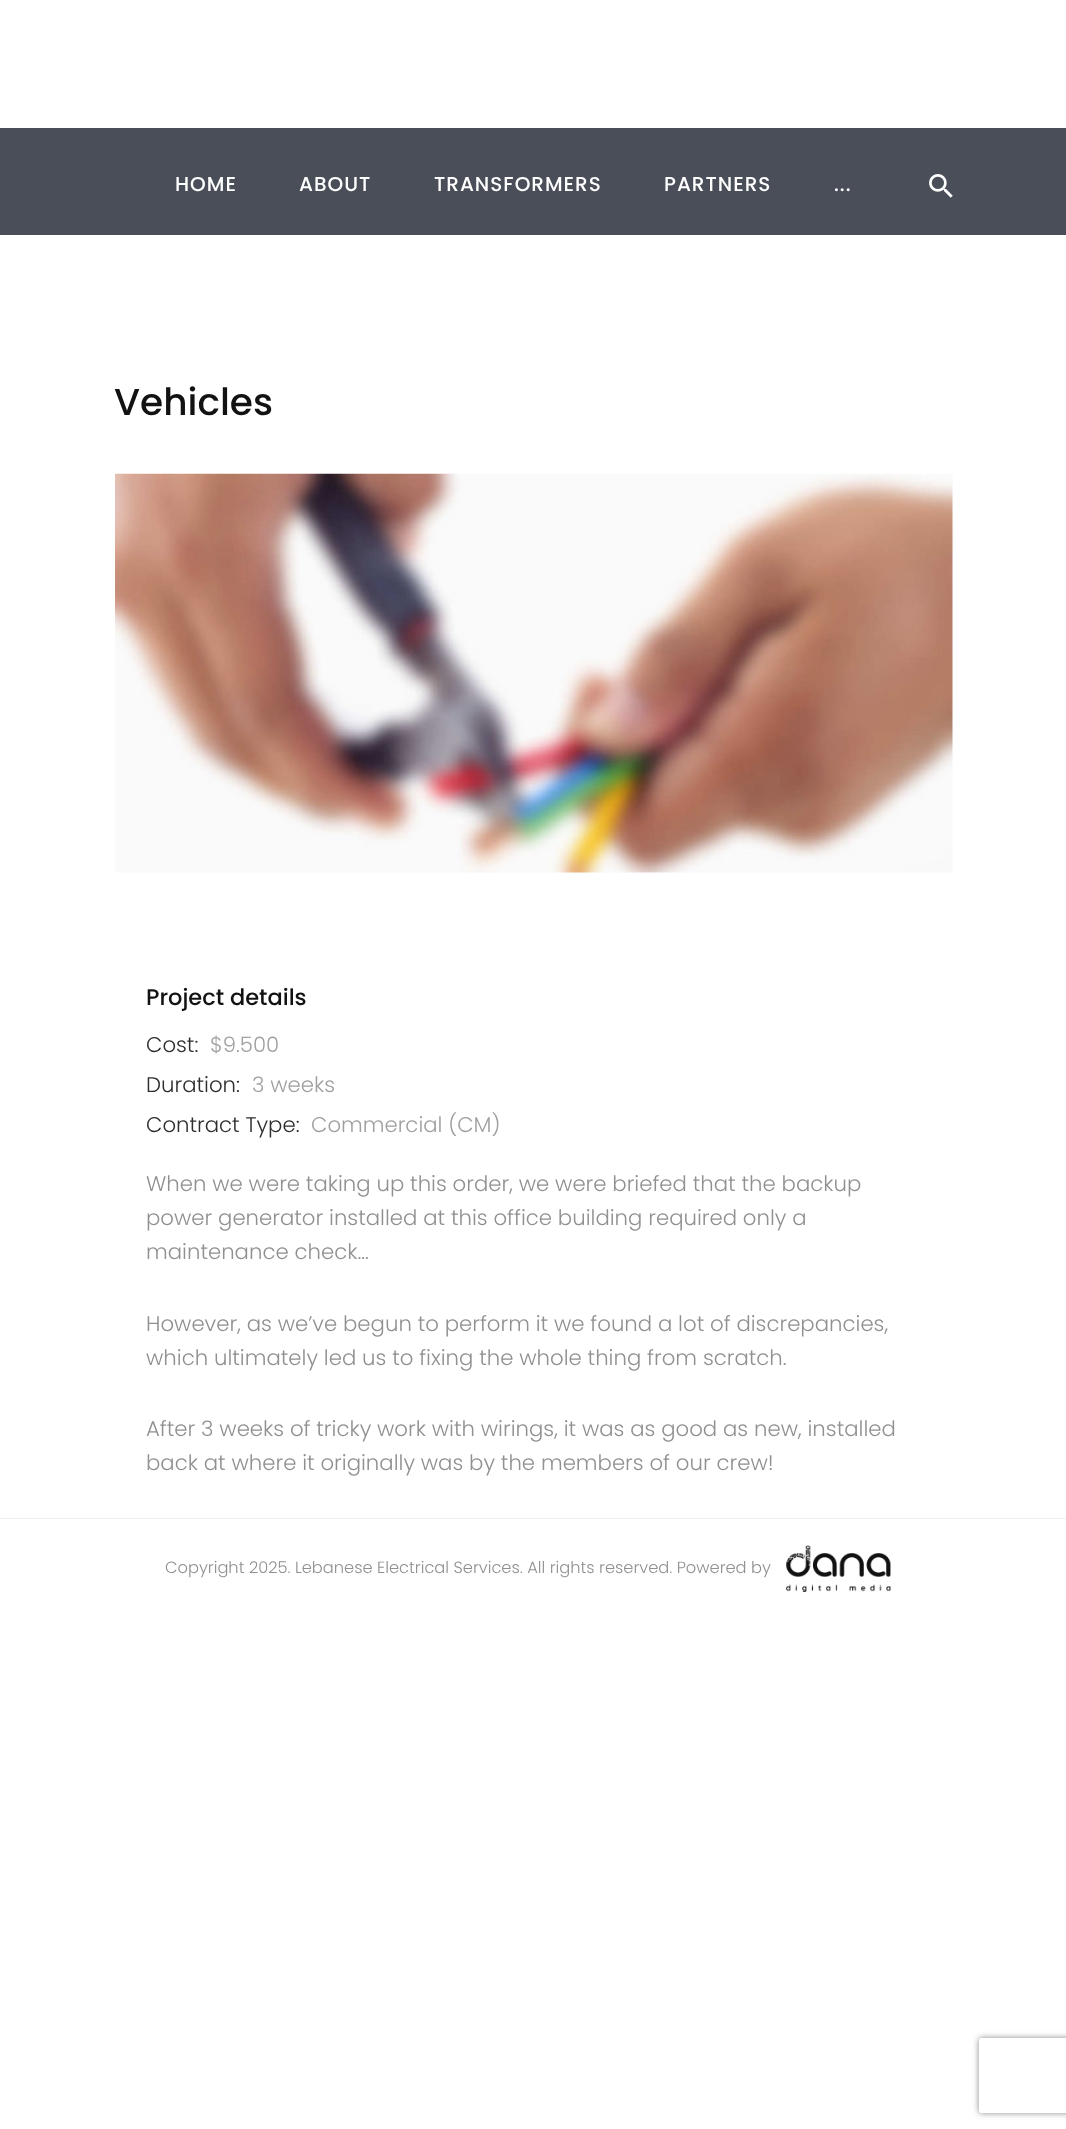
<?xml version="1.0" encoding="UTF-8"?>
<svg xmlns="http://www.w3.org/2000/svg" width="1066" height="2129">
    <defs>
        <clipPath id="clip1"><path d="M 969 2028 H 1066 V 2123 H 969 Z M 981.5 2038 H 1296.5 C 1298 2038 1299 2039 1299 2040.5 V 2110.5 C 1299 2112 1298 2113 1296.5 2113 H 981.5 C 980 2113 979 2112 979 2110.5 V 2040.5 C 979 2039 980 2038 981.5 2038 Z" clip-rule="evenodd"/></clipPath>
        <filter id="blur1" x="-50%" y="-200%" width="200%" height="500%"><feGaussianBlur stdDeviation="3"/></filter>
    </defs>
    <rect width="100%" height="100%" fill="#FFFFFF"/>
    <rect x="0" y="128" width="1066" height="107" fill="#4A4E59"/>
    <text x="175" y="191" font-family="Poppins" font-size="20" font-weight="500" letter-spacing="1" fill="#FFFFFF">HOME</text>
    <text x="299" y="191" font-family="Poppins" font-size="20" font-weight="500" letter-spacing="1" fill="#FFFFFF">ABOUT</text>
    <text x="434" y="191" font-family="Poppins" font-size="20" font-weight="500" letter-spacing="1" fill="#FFFFFF">TRANSFORMERS</text>
    <text x="664" y="191" font-family="Poppins" font-size="20" font-weight="500" letter-spacing="1" fill="#FFFFFF">PARTNERS</text>
    <text x="834" y="191" font-family="Poppins" font-size="20" font-weight="500" letter-spacing="1" fill="#FFFFFF">...</text>
    <image x="929" y="174" width="24" height="24" href="img_01.png"/>
    <text x="114" y="415" font-family="Poppins" font-size="37.5" font-weight="500" fill="#121212">Vehicles</text>
    <image x="115" y="473" width="838" height="400" href="img_02.png"/>
    <text x="146" y="1005" font-family="Poppins" font-size="22.5" font-weight="500" fill="#121212">Project details</text>
    <text x="146" y="1052" font-family="Poppins" font-size="21.25" font-weight="300" fill="#2D2D2D">Cost:</text>
    <text x="210" y="1052" font-family="Poppins" font-size="21.25" font-weight="300" fill="#9D9FA1">$9.500</text>
    <text x="146" y="1092" font-family="Poppins" font-size="21.25" font-weight="300" fill="#2D2D2D">Duration:</text>
    <text x="252" y="1092" font-family="Poppins" font-size="21.25" font-weight="300" fill="#9D9FA1">3 weeks</text>
    <text x="146" y="1132" font-family="Poppins" font-size="21.25" font-weight="300" fill="#2D2D2D">Contract Type:</text>
    <text x="311" y="1132" font-family="Poppins" font-size="21.25" font-weight="300" fill="#9D9FA1">Commercial (CM)</text>
    <text font-family="Poppins" font-size="21.25" font-weight="300" fill="#909090">
        <tspan x="146" y="1191">When we were taking up this order, we were briefed that the backup</tspan>
        <tspan x="146" y="1225">power generator installed at this office building required only a</tspan>
        <tspan x="146" y="1259">maintenance check…</tspan>
    </text>
    <text font-family="Poppins" font-size="21.25" font-weight="300" fill="#909090">
        <tspan x="146" y="1331">However, as we’ve begun to perform it we found a lot of discrepancies,</tspan>
        <tspan x="146" y="1365">which ultimately led us to fixing the whole thing from scratch.</tspan>
    </text>
    <text font-family="Poppins" font-size="21.25" font-weight="300" fill="#909090">
        <tspan x="146" y="1436">After 3 weeks of tricky work with wirings, it was as good as new, installed</tspan>
        <tspan x="146" y="1470">back at where it originally was by the members of our crew!</tspan>
    </text>
    <rect x="0" y="1518" width="1066" height="1" fill="#EFEFEF"/>
    <text x="165" y="1573" font-family="Poppins" font-size="16.25" font-weight="300" fill="#909090">Copyright 2025. Lebanese Electrical Services. All rights reserved. Powered by</text>
    <image x="786" y="1545" width="105" height="47" href="img_03.png"/>
    <g clip-path="url(#clip1)">
        <rect x="979" y="2038" width="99" height="75" rx="2.5" fill="#898989" filter="url(#blur1)"/>
    </g>
</svg>
